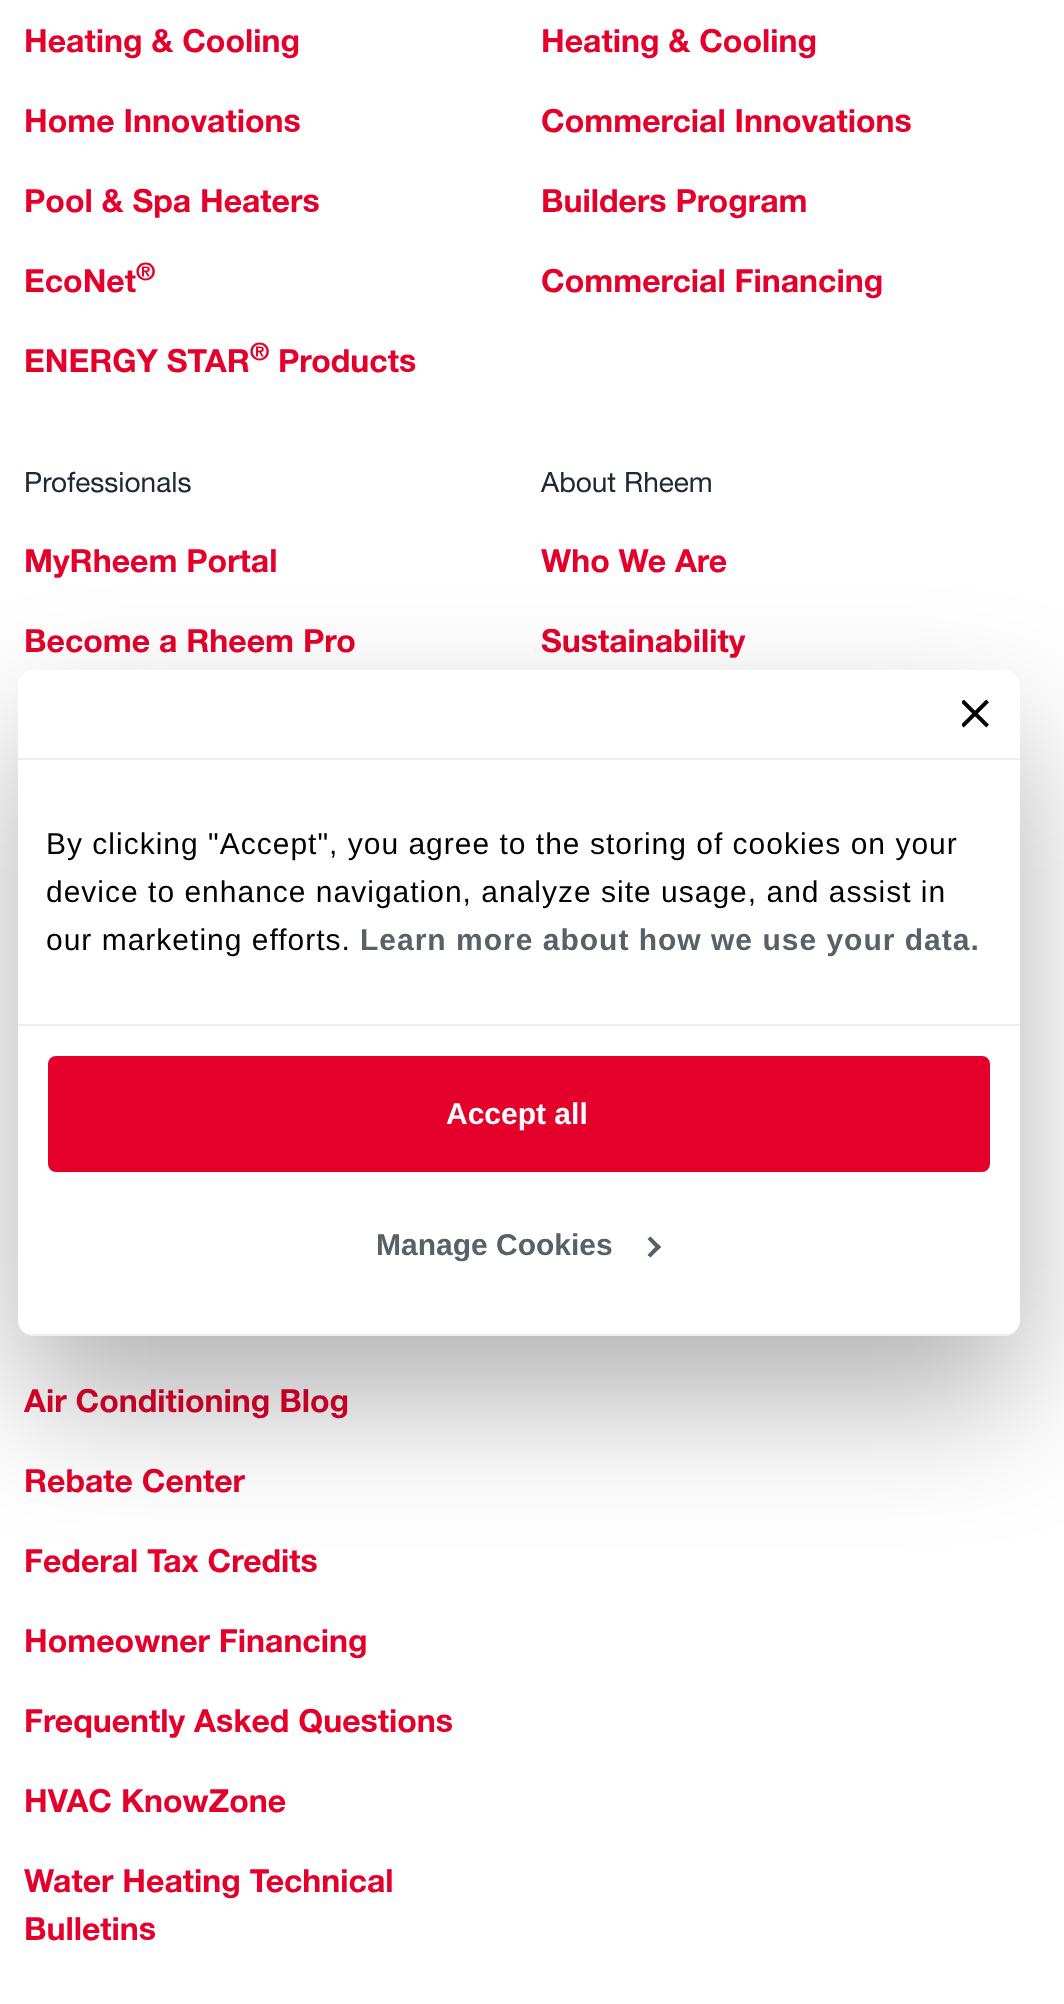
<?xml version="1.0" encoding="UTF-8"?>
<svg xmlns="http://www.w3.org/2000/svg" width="1064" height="2004">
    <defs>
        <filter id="blur1" x="-50%" y="-200%" width="200%" height="500%"><feGaussianBlur stdDeviation="68"/></filter>
        <clipPath id="clip1"><rect x="18" y="670" width="1002" height="666" rx="16"/></clipPath>
    </defs>
    <rect width="100%" height="100%" fill="#FFFFFF"/>
    <text x="24" y="52" font-family="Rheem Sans" font-size="32" font-weight="700" fill="#E4002B">Heating &amp; Cooling</text>
    <text x="24" y="132" font-family="Rheem Sans" font-size="32" font-weight="700" fill="#E4002B">Home Innovations</text>
    <text x="24" y="212" font-family="Rheem Sans" font-size="32" font-weight="700" fill="#E4002B">Pool &amp; Spa Heaters</text>
    <text x="24" y="292" font-family="Rheem Sans" font-size="32" font-weight="700" fill="#E4002B">EcoNet</text>
    <text x="136" y="280" font-family="Rheem Sans" font-size="24" font-weight="700" fill="#E4002B">®</text>
    <text x="24" y="372" font-family="Rheem Sans" font-size="32" font-weight="700" fill="#E4002B">ENERGY STAR</text>
    <text x="250" y="360" font-family="Rheem Sans" font-size="24" font-weight="700" fill="#E4002B">®</text>
    <text x="278" y="372" font-family="Rheem Sans" font-size="32" font-weight="700" fill="#E4002B">Products</text>
    <text x="541" y="52" font-family="Rheem Sans" font-size="32" font-weight="700" fill="#E4002B">Heating &amp; Cooling</text>
    <text x="541" y="132" font-family="Rheem Sans" font-size="32" font-weight="700" fill="#E4002B">Commercial Innovations</text>
    <text x="541" y="212" font-family="Rheem Sans" font-size="32" font-weight="700" fill="#E4002B">Builders Program</text>
    <text x="541" y="292" font-family="Rheem Sans" font-size="32" font-weight="700" fill="#E4002B">Commercial Financing</text>
    <text x="24" y="492" font-family="Rheem Sans" font-size="28" fill="#202834">Professionals</text>
    <text x="24" y="572" font-family="Rheem Sans" font-size="32" font-weight="700" fill="#E4002B">MyRheem Portal</text>
    <text x="24" y="652" font-family="Rheem Sans" font-size="32" font-weight="700" fill="#E4002B">Become a Rheem Pro</text>
    <text x="541" y="492" font-family="Rheem Sans" font-size="28" fill="#202834">About Rheem</text>
    <text x="541" y="572" font-family="Rheem Sans" font-size="32" font-weight="700" fill="#E4002B">Who We Are</text>
    <text x="541" y="652" font-family="Rheem Sans" font-size="32" font-weight="700" fill="#E4002B">Sustainability</text>
    <text x="24" y="1412" font-family="Rheem Sans" font-size="32" font-weight="700" fill="#E4002B">Air Conditioning Blog</text>
    <text x="24" y="1492" font-family="Rheem Sans" font-size="32" font-weight="700" fill="#E4002B">Rebate Center</text>
    <text x="24" y="1572" font-family="Rheem Sans" font-size="32" font-weight="700" fill="#E4002B">Federal Tax Credits</text>
    <text x="24" y="1652" font-family="Rheem Sans" font-size="32" font-weight="700" fill="#E4002B">Homeowner Financing</text>
    <text x="24" y="1732" font-family="Rheem Sans" font-size="32" font-weight="700" fill="#E4002B">Frequently Asked Questions</text>
    <text x="24" y="1812" font-family="Rheem Sans" font-size="32" font-weight="700" fill="#E4002B">HVAC KnowZone</text>
    <text font-family="Rheem Sans" font-size="32" font-weight="700" fill="#E4002B">
        <tspan x="24" y="1892">Water Heating Technical</tspan>
        <tspan x="24" y="1940">Bulletins</tspan>
    </text>
    <rect x="18" y="734" width="1002" height="666" rx="16" fill="#000000" fill-opacity="0.3" filter="url(#blur1)"/>
    <rect x="18" y="670" width="1002" height="666" rx="16" fill="#FFFFFF"/>
    <rect x="18" y="758" width="1002" height="2" fill="#EEEEEE"/>
    <image x="962" y="700" width="27" height="28" href="img_01.png"/>
    <rect x="18" y="1024" width="1002" height="2" fill="#EEEEEE"/>
    <text font-family="Liberation Sans" font-size="30" letter-spacing="1" fill="#000000">
        <tspan x="46" y="854">By clicking "Accept", you agree to the storing of cookies on your</tspan>
        <tspan x="46" y="902">device to enhance navigation, analyze site usage, and assist in</tspan>
        <tspan x="46" y="950">our marketing efforts.</tspan>
    </text>
    <text x="360" y="950" font-family="Liberation Sans" font-size="30" font-weight="700" letter-spacing="1" fill="#596067">Learn more about how we use your data.</text>
    <g clip-path="url(#clip1)">
        <rect x="18" y="1334" width="1002" height="2" fill="#EEEEEE"/>
    </g>
    <rect x="50" y="1058" width="938" height="112" rx="6" fill="#E4002B" stroke="#E4002B" stroke-width="4"/>
    <text x="446" y="1124" font-family="Liberation Sans" font-size="30" font-weight="700" fill="#FFFFFF">Accept all</text>
    <text x="376" y="1255" font-family="Liberation Sans" font-size="30" font-weight="700" fill="#596067">Manage Cookies</text>
    <path d="M 650.5 1236.5 L 661 1247 L 658 1250 L 647.5 1239 Z" fill="#596067"/>
    <path d="M 658 1244 L 661 1247 L 650.5 1257.5 L 647.5 1255 Z" fill="#596067"/>
</svg>
